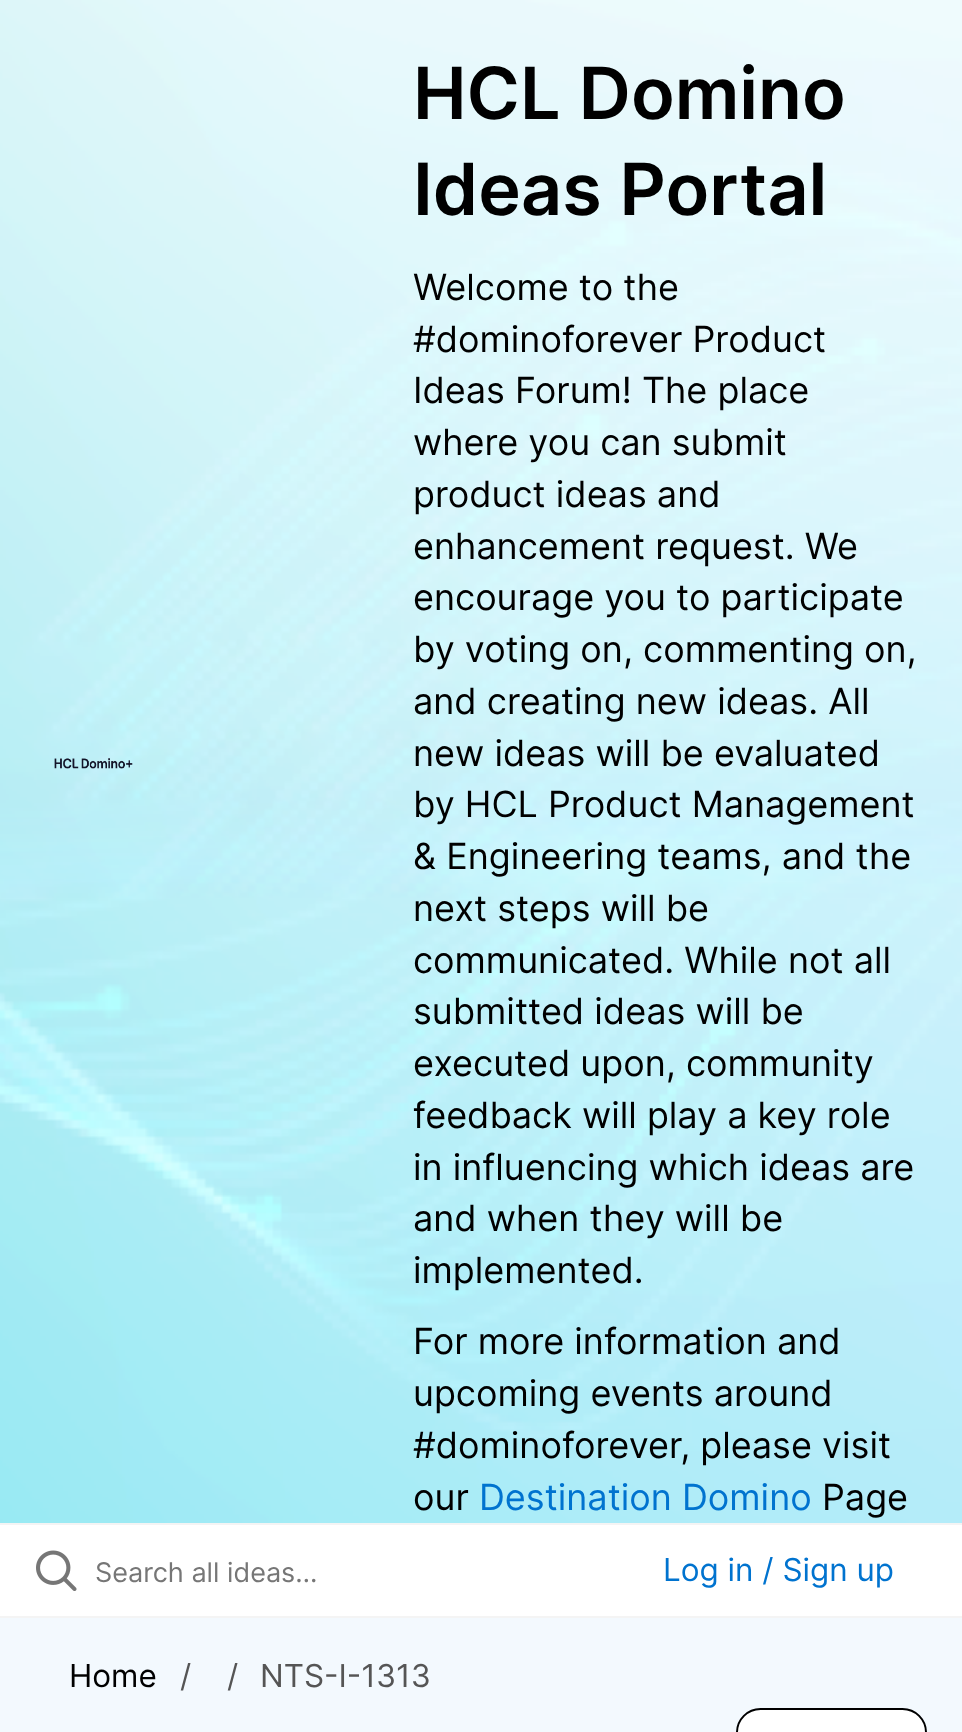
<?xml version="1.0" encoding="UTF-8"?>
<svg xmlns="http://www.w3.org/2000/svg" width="962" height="1732">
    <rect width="100%" height="100%" fill="#F3F9FE"/>
    <rect x="0" y="1525" width="962" height="91" fill="#FFFFFF"/>
    <image x="0" y="0" width="962" height="1523" href="img_01.png"/>
    <rect x="0" y="1523" width="962" height="2" fill="#F4F4F4"/>
    <image x="54" y="758" width="79" height="11" href="img_02.png"/>
    <text font-family="Inter" font-size="72" font-weight="600" fill="#000000">
        <tspan x="413" y="119">HCL Domino</tspan>
        <tspan x="413" y="215">Ideas Portal</tspan>
    </text>
    <text font-family="Inter" font-size="36" fill="#000000">
        <tspan x="413" y="300">Welcome to the</tspan>
        <tspan x="413" y="352">#dominoforever Product</tspan>
        <tspan x="413" y="403">Ideas Forum! The place</tspan>
        <tspan x="413" y="455">where you can submit</tspan>
        <tspan x="413" y="507">product ideas and</tspan>
        <tspan x="413" y="559">enhancement request. We</tspan>
        <tspan x="413" y="610">encourage you to participate</tspan>
        <tspan x="413" y="662">by voting on, commenting on,</tspan>
        <tspan x="413" y="714">and creating new ideas. All</tspan>
        <tspan x="413" y="766">new ideas will be evaluated</tspan>
        <tspan x="413" y="817">by HCL Product Management</tspan>
        <tspan x="413" y="869">&amp; Engineering teams, and the</tspan>
        <tspan x="413" y="921">next steps will be</tspan>
        <tspan x="413" y="973">communicated. While not all</tspan>
        <tspan x="413" y="1024">submitted ideas will be</tspan>
        <tspan x="413" y="1076">executed upon, community</tspan>
        <tspan x="413" y="1128">feedback will play a key role</tspan>
        <tspan x="413" y="1180">in influencing which ideas are</tspan>
        <tspan x="413" y="1231">and when they will be</tspan>
        <tspan x="413" y="1283">implemented.</tspan>
        <tspan x="413" y="1354">For more information and</tspan>
        <tspan x="413" y="1406">upcoming events around</tspan>
        <tspan x="413" y="1458">#dominoforever, please visit</tspan>
        <tspan x="413" y="1510">our</tspan>
    </text>
    <text x="479" y="1510" font-family="Inter" font-size="36" fill="#0073CF">Destination Domino</text>
    <text x="822" y="1510" font-family="Inter" font-size="36" fill="#000000">Page</text>
    <rect x="0" y="1616" width="962" height="2" fill="#F4F4F4"/>
    <image x="36" y="1550" width="41" height="41" href="img_03.png"/>
    <text x="95" y="1582" font-family="Inter" font-size="27" fill="#767676">Search all ideas…</text>
    <text x="663" y="1581" font-family="Inter" font-size="31.5" fill="#0073CF">Log in / Sign up</text>
    <text x="69" y="1687" font-family="Inter" font-size="31.5" fill="#000000">Home</text>
    <text x="180" y="1687" font-family="Inter" font-size="31.5" fill="#555555">/</text>
    <text x="227" y="1687" font-family="Inter" font-size="31.5" fill="#555555">/</text>
    <text x="260" y="1687" font-family="Inter" font-size="31.5" fill="#555555">NTS-I-1313</text>
    <rect x="737" y="1709" width="189" height="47" rx="23.5" fill="#FFFFFF" stroke="#000000" stroke-width="2"/>
</svg>
